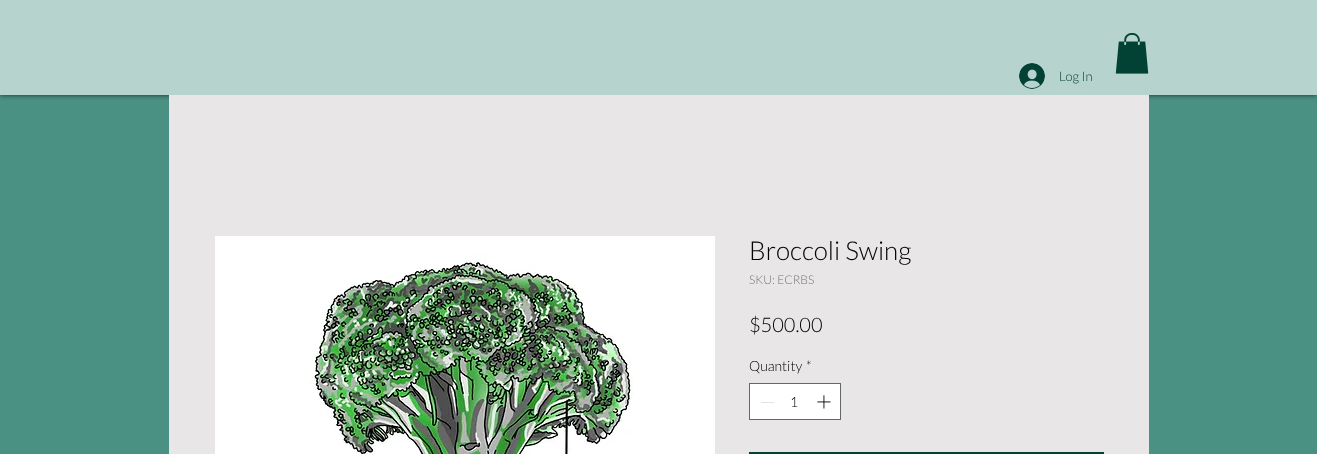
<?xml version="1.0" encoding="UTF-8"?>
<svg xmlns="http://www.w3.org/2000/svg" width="1317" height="454">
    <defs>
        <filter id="blur1" x="-50%" y="-200%" width="200%" height="500%"><feGaussianBlur stdDeviation="2.5"/></filter>
    </defs>
    <rect width="100%" height="100%" fill="#4A9183"/>
    <rect x="0" y="0" width="1317" height="95" fill="#000000" fill-opacity="0.7" filter="url(#blur1)"/>
    <rect x="0" y="0" width="1317" height="95" fill="#B7D3CD"/>
    <image x="1115" y="33" width="34" height="41" href="img_01.png"/>
    <image x="1019" y="63" width="26" height="26" href="img_02.png"/>
    <text x="1059" y="81" font-family="Lato" font-size="13" font-weight="300" fill="#014235">Log In</text>
    <rect x="169" y="95" width="980" height="359" fill="#E8E6E6"/>
    <image x="215" y="236" width="500" height="218" href="img_03.png"/>
    <text x="749" y="260" font-family="Lato" font-size="26" font-weight="300" fill="#000000">Broccoli Swing</text>
    <text x="749" y="284" font-family="Lato" font-size="12" font-weight="300" fill="#757575">SKU: ECRBS</text>
    <text x="749" y="332" font-family="Lato" font-size="20" font-weight="300" fill="#000000">$500.00</text>
    <text x="749" y="371" font-family="Lato" font-size="14" font-weight="300" fill="#000000">Quantity</text>
    <text x="806" y="371" font-family="Lato" font-size="14" font-weight="300" fill="#000000">*</text>
    <rect x="749.5" y="383.5" width="91" height="36" fill="#FFFFFF" stroke="#666666"/>
    <rect x="761" y="402" width="13" height="1" fill="#E3E3E3"/>
    <text x="790" y="407" font-family="Lato" font-size="14" font-weight="300" fill="#000000">1</text>
    <image x="817" y="395" width="14" height="14" href="img_04.png"/>
    <rect x="749" y="452" width="355" height="2" fill="#014235"/>
</svg>
